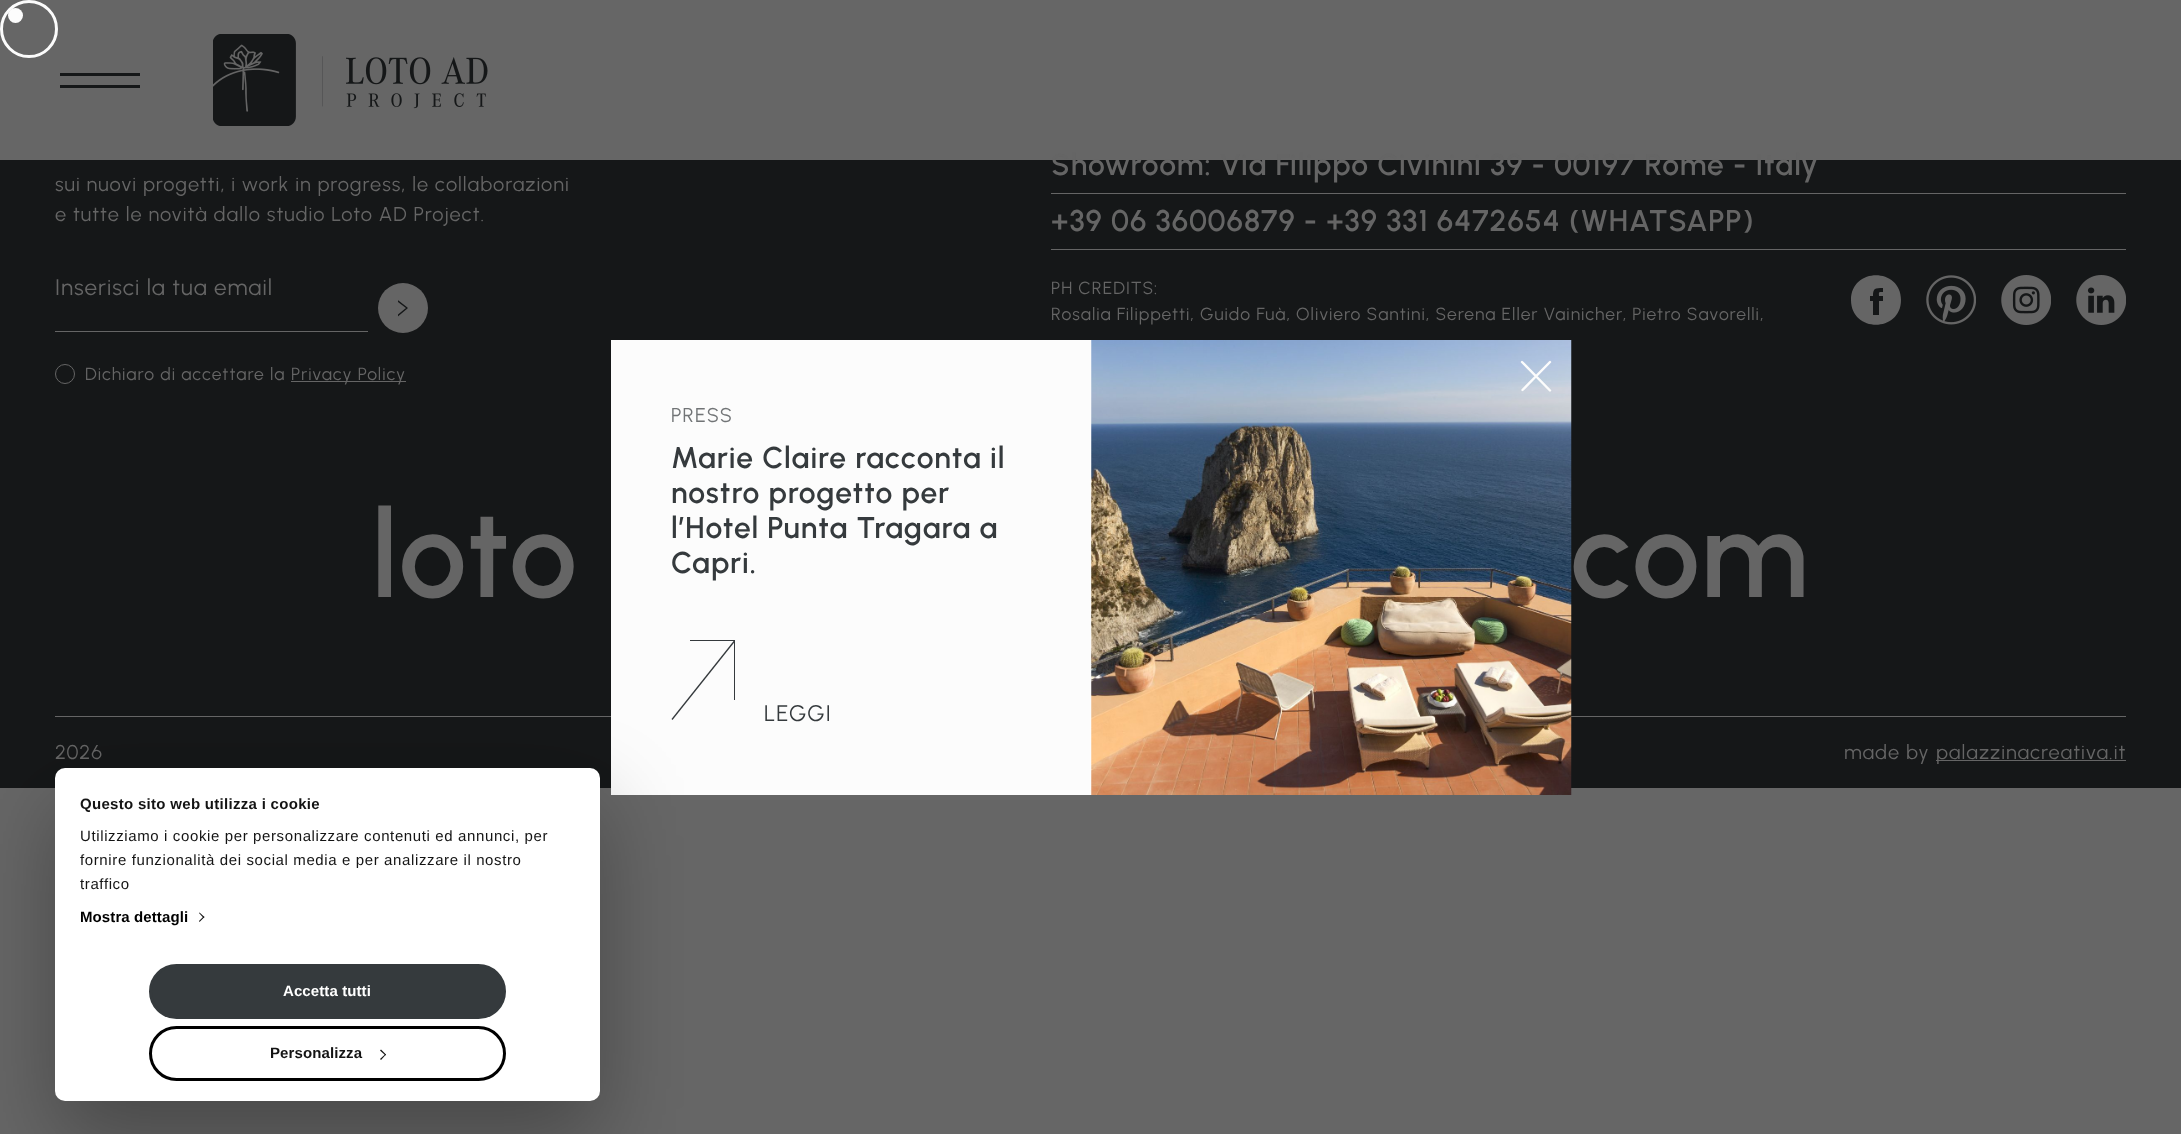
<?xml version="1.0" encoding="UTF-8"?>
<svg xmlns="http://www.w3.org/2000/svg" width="2181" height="1134">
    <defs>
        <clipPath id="clip1"><rect x="398" y="294" width="10" height="27"/></clipPath>
        <filter id="blur1" x="-50%" y="-200%" width="200%" height="500%"><feGaussianBlur stdDeviation="44"/></filter>
    </defs>
    <rect width="100%" height="100%" fill="#666666"/>
    <circle cx="29" cy="29" r="27.5" fill="none" stroke="#FCFCFC" stroke-width="3"/>
    <circle cx="15.5" cy="15.5" r="7.5" fill="#FCFCFC"/>
    <rect x="60" y="73" width="80" height="3" fill="#151718"/>
    <rect x="60" y="85" width="80" height="3" fill="#151718"/>
    <image x="213" y="34" width="275" height="92" href="img_01.png"/>
    <rect x="0" y="160" width="2181" height="628" fill="#151718"/>
    <text font-family="Urbanist" font-size="20" letter-spacing="1" fill="#656565">
        <tspan x="55" y="191">sui nuovi progetti, i work in progress, le collaborazioni</tspan>
        <tspan x="55" y="221">e tutte le novità dallo studio Loto AD Project.</tspan>
    </text>
    <rect x="55" y="331" width="313" height="1" fill="#656565"/>
    <text x="55" y="295" font-family="Urbanist" font-size="22.5" letter-spacing="1" fill="#656565">Inserisci la tua email</text>
    <circle cx="403" cy="308" r="25" fill="#656565"/>
    <g clip-path="url(#clip1)">
        <path d="M 398 301 L 407 308 L 398 315.5" fill="none" stroke="#151718" stroke-width="1.4" stroke-linecap="round" stroke-linejoin="round"/>
    </g>
    <circle cx="65" cy="374" r="9.5" fill="none" stroke="#656565"/>
    <text x="85" y="380" font-family="Urbanist" font-size="17.5" letter-spacing="1" fill="#656565">Dichiaro di accettare la</text>
    <rect x="291" y="381" width="115" height="1" fill="#656565"/>
    <text x="291" y="380" font-family="Urbanist" font-size="17.5" letter-spacing="1" fill="#656565">Privacy Policy</text>
    <rect x="1051" y="193" width="1075" height="1" fill="#656565"/>
    <text x="1051" y="175" font-family="Urbanist" font-size="30" font-weight="600" letter-spacing="1" fill="#656565">Showroom: Via Filippo Civinini 39 - 00197 Rome - Italy</text>
    <rect x="1051" y="249" width="1075" height="1" fill="#656565"/>
    <text x="1051" y="231" font-family="Urbanist" font-size="30" font-weight="600" letter-spacing="1" fill="#656565">+39 06 36006879 - +39 331 6472654 (WHATSAPP)</text>
    <text font-family="Urbanist" font-size="17.5" letter-spacing="1" fill="#656565">
        <tspan x="1051" y="294">PH CREDITS:</tspan>
        <tspan x="1051" y="320">Rosalia Filippetti, Guido Fuà, Oliviero Santini, Serena Eller Vainicher, Pietro Savorelli,</tspan>
    </text>
    <path d="M 1851 300 C 1851 267 1901 267 1901 300 C 1901 333 1851 333 1851 300 Z M 1879 315 V 301 H 1883 V 296 H 1879 C 1879 292 1878 292 1883 292 V 288 C 1875 288 1873 288 1873 296 H 1870 V 301 H 1873 V 315 Z" fill="#656565" fill-rule="evenodd"/>
    <image x="1926" y="275" width="50" height="50" href="img_02.png"/>
    <image x="2001" y="275" width="50" height="50" href="img_03.png"/>
    <image x="2076" y="275" width="50" height="50" href="img_04.png"/>
    <text x="371" y="597" font-family="Urbanist" font-size="122" font-weight="600" letter-spacing="1" fill="#656565">loto</text>
    <text x="1570" y="597" font-family="Urbanist" font-size="122" font-weight="600" letter-spacing="1" fill="#656565">com</text>
    <rect x="55" y="716" width="2071" height="1" fill="#656565"/>
    <text x="55" y="759" font-family="Urbanist" font-size="20" letter-spacing="1" fill="#656565">2026</text>
    <text x="1844" y="759" font-family="Urbanist" font-size="20" letter-spacing="1" fill="#656565">made by</text>
    <rect x="1936" y="760" width="190" height="1" fill="#656565"/>
    <text x="1936" y="759" font-family="Urbanist" font-size="20" letter-spacing="1" fill="#656565">palazzinacreativa.it</text>
    <rect x="611" y="340" width="481" height="455" fill="#FCFCFC"/>
    <image x="1091" y="340" width="481" height="455" href="img_05.png"/>
    <path d="M 1550 362 L 1522.5 390 M 1550 390.5 L 1522 362" fill="none" stroke="#FCFCFC" stroke-width="2.4" stroke-linecap="round"/>
    <text x="671" y="422" font-family="Urbanist" font-size="20" letter-spacing="1" fill="#717476">PRESS</text>
    <text font-family="Urbanist" font-size="30" font-weight="600" letter-spacing="1" fill="#353A3D">
        <tspan x="671" y="468">Marie Claire racconta il</tspan>
        <tspan x="671" y="503">nostro progetto per</tspan>
        <tspan x="671" y="538">l’Hotel Punta Tragara a</tspan>
        <tspan x="671" y="573">Capri.</tspan>
    </text>
    <rect x="690" y="640" width="45" height="1" fill="#353A3D"/>
    <rect x="734" y="640" width="1" height="60" fill="#353A3D"/>
    <path d="M 734.5 641 L 672 719.5" fill="none" stroke="#353A3D" stroke-width="1.3"/>
    <text x="764" y="721" font-family="Urbanist" font-size="22.5" letter-spacing="1" fill="#353A3D">LEGGI</text>
    <rect x="55" y="805" width="545" height="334" rx="10" fill="#000000" fill-opacity="0.3" filter="url(#blur1)"/>
    <rect x="55" y="768" width="545" height="333" rx="10" fill="#FFFFFF"/>
    <text x="80" y="809" font-family="Liberation Sans" font-size="15" font-weight="700" letter-spacing="0.3" fill="#141414">Questo sito web utilizza i cookie</text>
    <text font-family="Liberation Sans" font-size="15" letter-spacing="0.62" fill="#141414">
        <tspan x="80" y="841">Utilizziamo i cookie per personalizzare contenuti ed annunci, per</tspan>
        <tspan x="80" y="865">fornire funzionalità dei social media e per analizzare il nostro</tspan>
        <tspan x="80" y="889">traffico</tspan>
    </text>
    <text x="80" y="922" font-family="Liberation Sans" font-size="15" font-weight="700" letter-spacing="0.1" fill="#000000">Mostra dettagli</text>
    <path d="M 199.5 912.5 L 204.5 917 L 203.5 918 L 199 913 Z" fill="#141414"/>
    <path d="M 203.5 916.5 L 204.5 917 L 199.5 922 L 199 921 Z" fill="#141414"/>
    <rect x="150.5" y="965.5" width="354" height="52" rx="26" fill="#353A3D" stroke="#353A3D" stroke-width="3"/>
    <text x="283" y="996" font-family="Liberation Sans" font-size="15" font-weight="700" letter-spacing="0.1" fill="#FFFFFF">Accetta tutti</text>
    <rect x="150.5" y="1027.5" width="354" height="52" rx="26" fill="none" stroke="#000000" stroke-width="3"/>
    <text x="270" y="1058" font-family="Liberation Sans" font-size="15" font-weight="700" letter-spacing="0.1" fill="#141414">Personalizza</text>
    <path d="M 381 1049.5 L 386 1054.5 L 385.5 1055.5 L 380 1050.5 Z" fill="#141414"/>
    <path d="M 385.5 1054 L 386 1054.5 L 381 1060 L 380 1059 Z" fill="#141414"/>
</svg>
